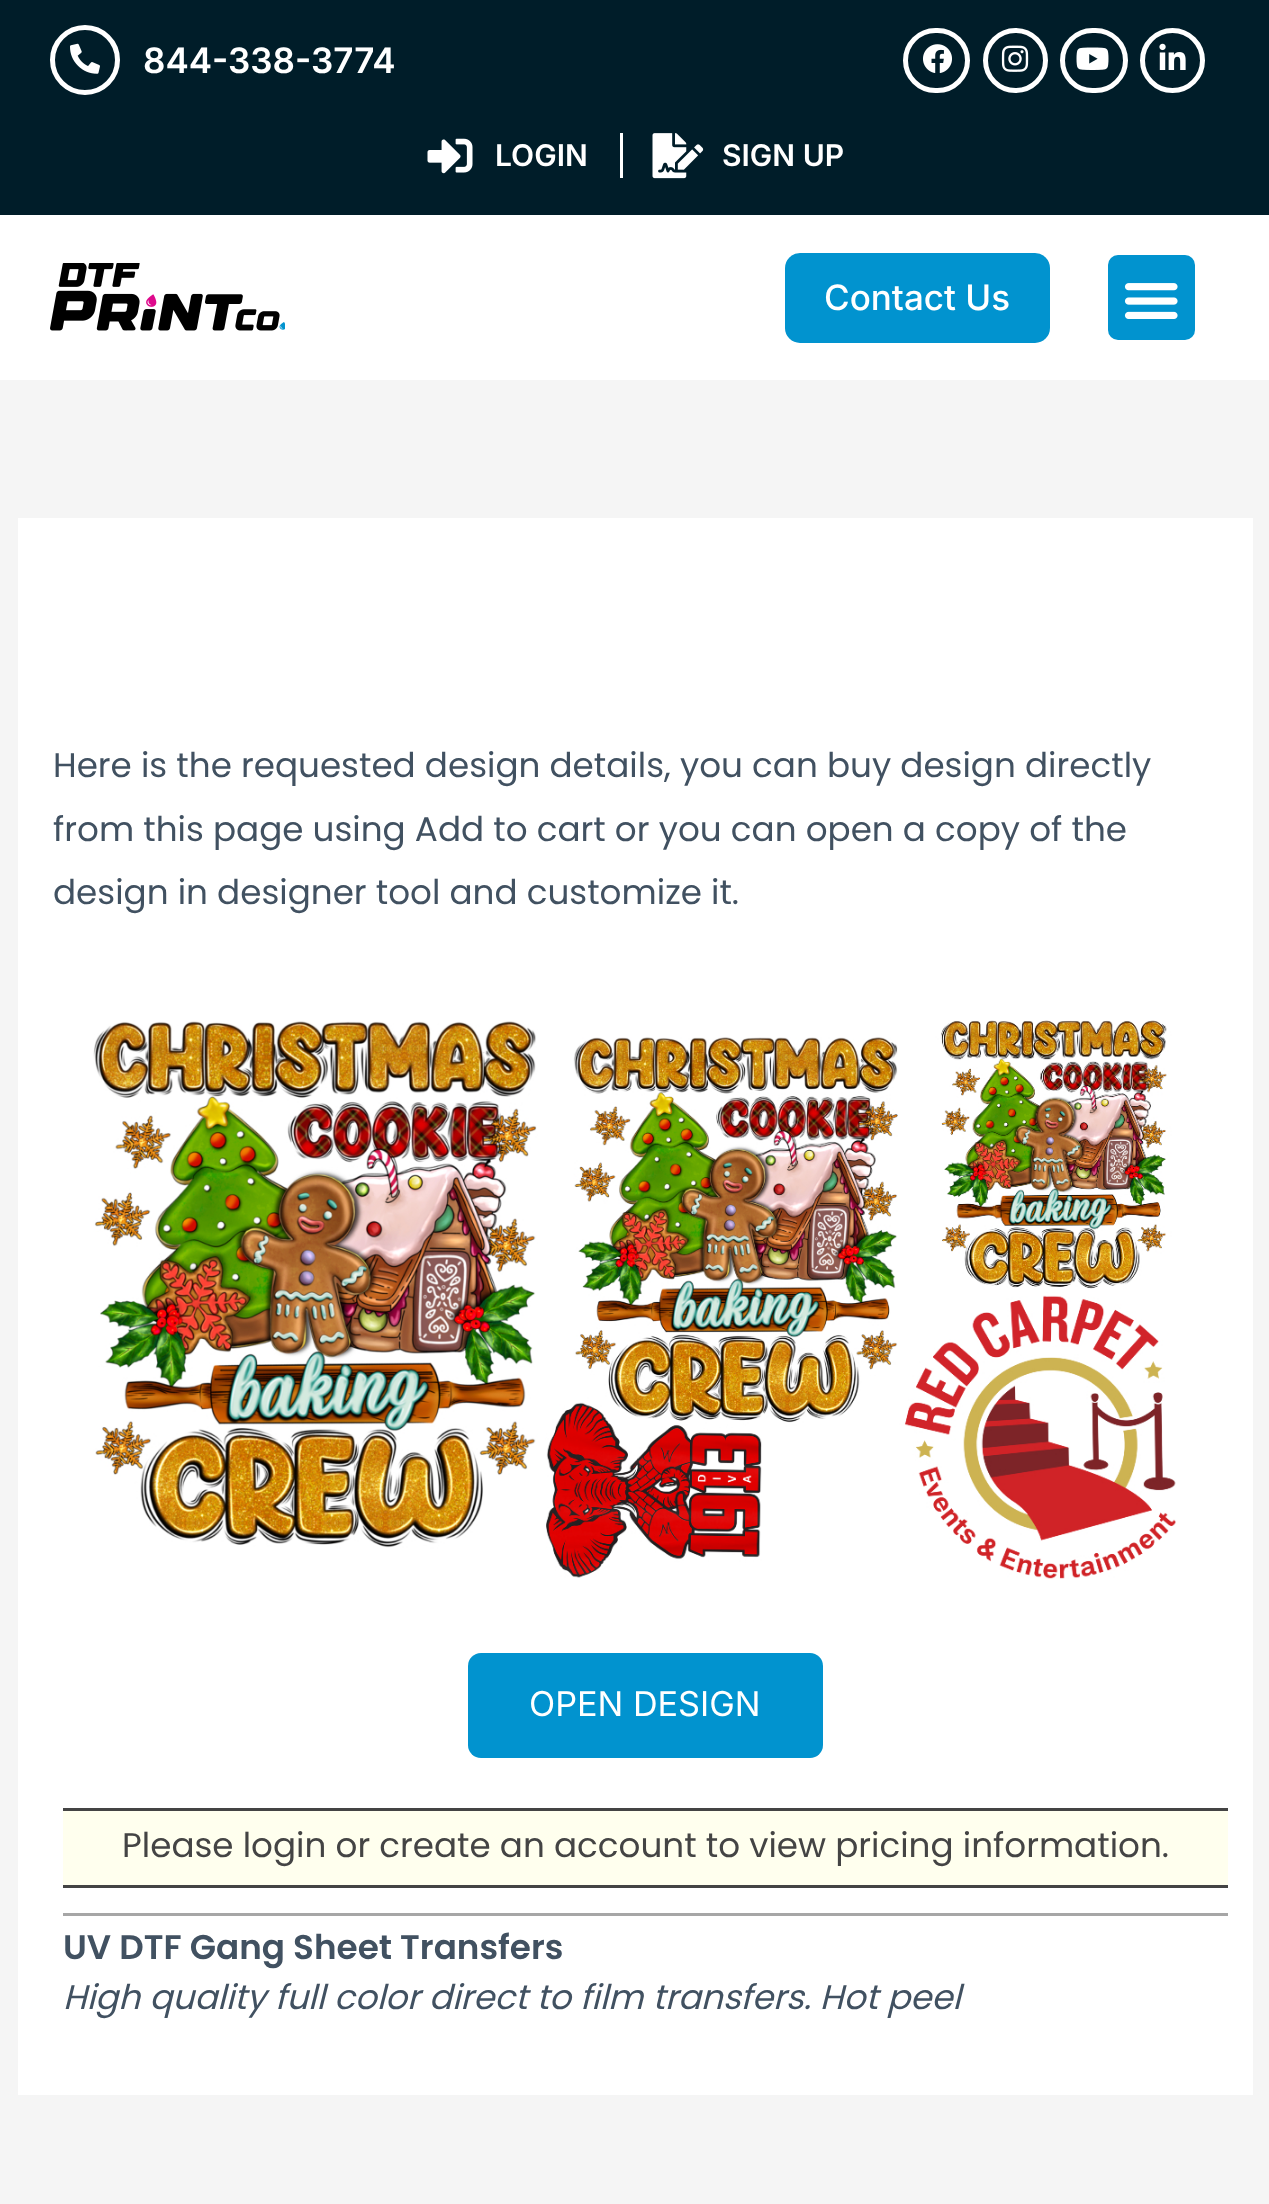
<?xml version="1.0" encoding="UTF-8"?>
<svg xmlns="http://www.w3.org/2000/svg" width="1269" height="2204">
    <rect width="100%" height="100%" fill="#F5F5F5"/>
    <rect x="0" y="215" width="1269" height="165" fill="#FFFFFF"/>
    <rect x="0" y="0" width="1269" height="215" fill="#001D29"/>
    <circle cx="85" cy="60" r="32.5" fill="none" stroke="#FFFFFF" stroke-width="5"/>
    <image x="70" y="43" width="30" height="31" href="img_01.png"/>
    <text x="143" y="73" font-family="Inter" font-size="35" font-weight="600" fill="#FFFFFF">844-338-3774</text>
    <rect x="905.5" y="30.5" width="62" height="60" rx="30" fill="none" stroke="#FFFFFF" stroke-width="5"/>
    <image x="923" y="44" width="29" height="29" href="img_02.png"/>
    <circle cx="1015.5" cy="60.5" r="30" fill="none" stroke="#FFFFFF" stroke-width="5"/>
    <image x="1001" y="45" width="28" height="27" href="img_03.png"/>
    <rect x="1062.5" y="30.5" width="63" height="60" rx="30" fill="none" stroke="#FFFFFF" stroke-width="5"/>
    <image x="1076" y="47" width="33" height="23" href="img_04.png"/>
    <circle cx="1172.5" cy="60.5" r="30" fill="none" stroke="#FFFFFF" stroke-width="5"/>
    <image x="1159" y="43" width="27" height="27" href="img_05.png"/>
    <image x="427" y="138" width="46" height="36" href="img_06.png"/>
    <text x="495" y="166" font-family="Inter" font-size="30" font-weight="600" fill="#FFFFFF">LOGIN</text>
    <rect x="620" y="133" width="3" height="45" fill="#FFFFFF"/>
    <image x="652" y="133" width="52" height="46" href="img_07.png"/>
    <text x="722" y="166" font-family="Inter" font-size="30" font-weight="600" fill="#FFFFFF">SIGN UP</text>
    <image x="50" y="263" width="235" height="68" href="img_08.png"/>
    <rect x="785" y="253" width="265" height="90" rx="15" fill="#0193CF"/>
    <text x="824" y="310" font-family="Inter" font-size="35" font-weight="500" fill="#FFFFFF">Contact Us</text>
    <rect x="1108" y="255" width="87" height="85" rx="10" fill="#0193CF"/>
    <image x="1124" y="283" width="54" height="36" href="img_09.png"/>
    <rect x="18" y="518" width="1235" height="1577" fill="#FFFFFF"/>
    <text font-family="Poppins" font-size="34.2" fill="#415161">
        <tspan x="53" y="777">Here is the requested design details, you can buy design directly</tspan>
        <tspan x="53" y="841">from this page using Add to cart or you can open a copy of the</tspan>
        <tspan x="53" y="904">design in designer tool and customize it.</tspan>
    </text>
    <image x="93" y="1020" width="1083" height="559" href="img_10.png"/>
    <rect x="468" y="1653" width="355" height="105" rx="13" fill="#0193CF"/>
    <text x="529" y="1716" font-family="Inter" font-size="34.2" fill="#FFFFFF">OPEN DESIGN</text>
    <rect x="63" y="1811" width="1165" height="74" fill="#FFFFEE"/>
    <rect x="63" y="1808" width="1165" height="3" fill="#444444"/>
    <rect x="63" y="1885" width="1165" height="3" fill="#444444"/>
    <text x="122" y="1857" font-family="Poppins" font-size="34.2" fill="#444444">Please login or create an account to view pricing information.</text>
    <rect x="63" y="1913" width="1165" height="3" fill="#A6A6A6"/>
    <text x="63" y="1959" font-family="Poppins" font-size="34.2" font-weight="600" fill="#415161">UV DTF Gang Sheet Transfers</text>
    <text x="63" y="2009" font-family="Poppins" font-size="34.2" font-style="italic" fill="#415161">High quality full color direct to film transfers. Hot peel</text>
</svg>
